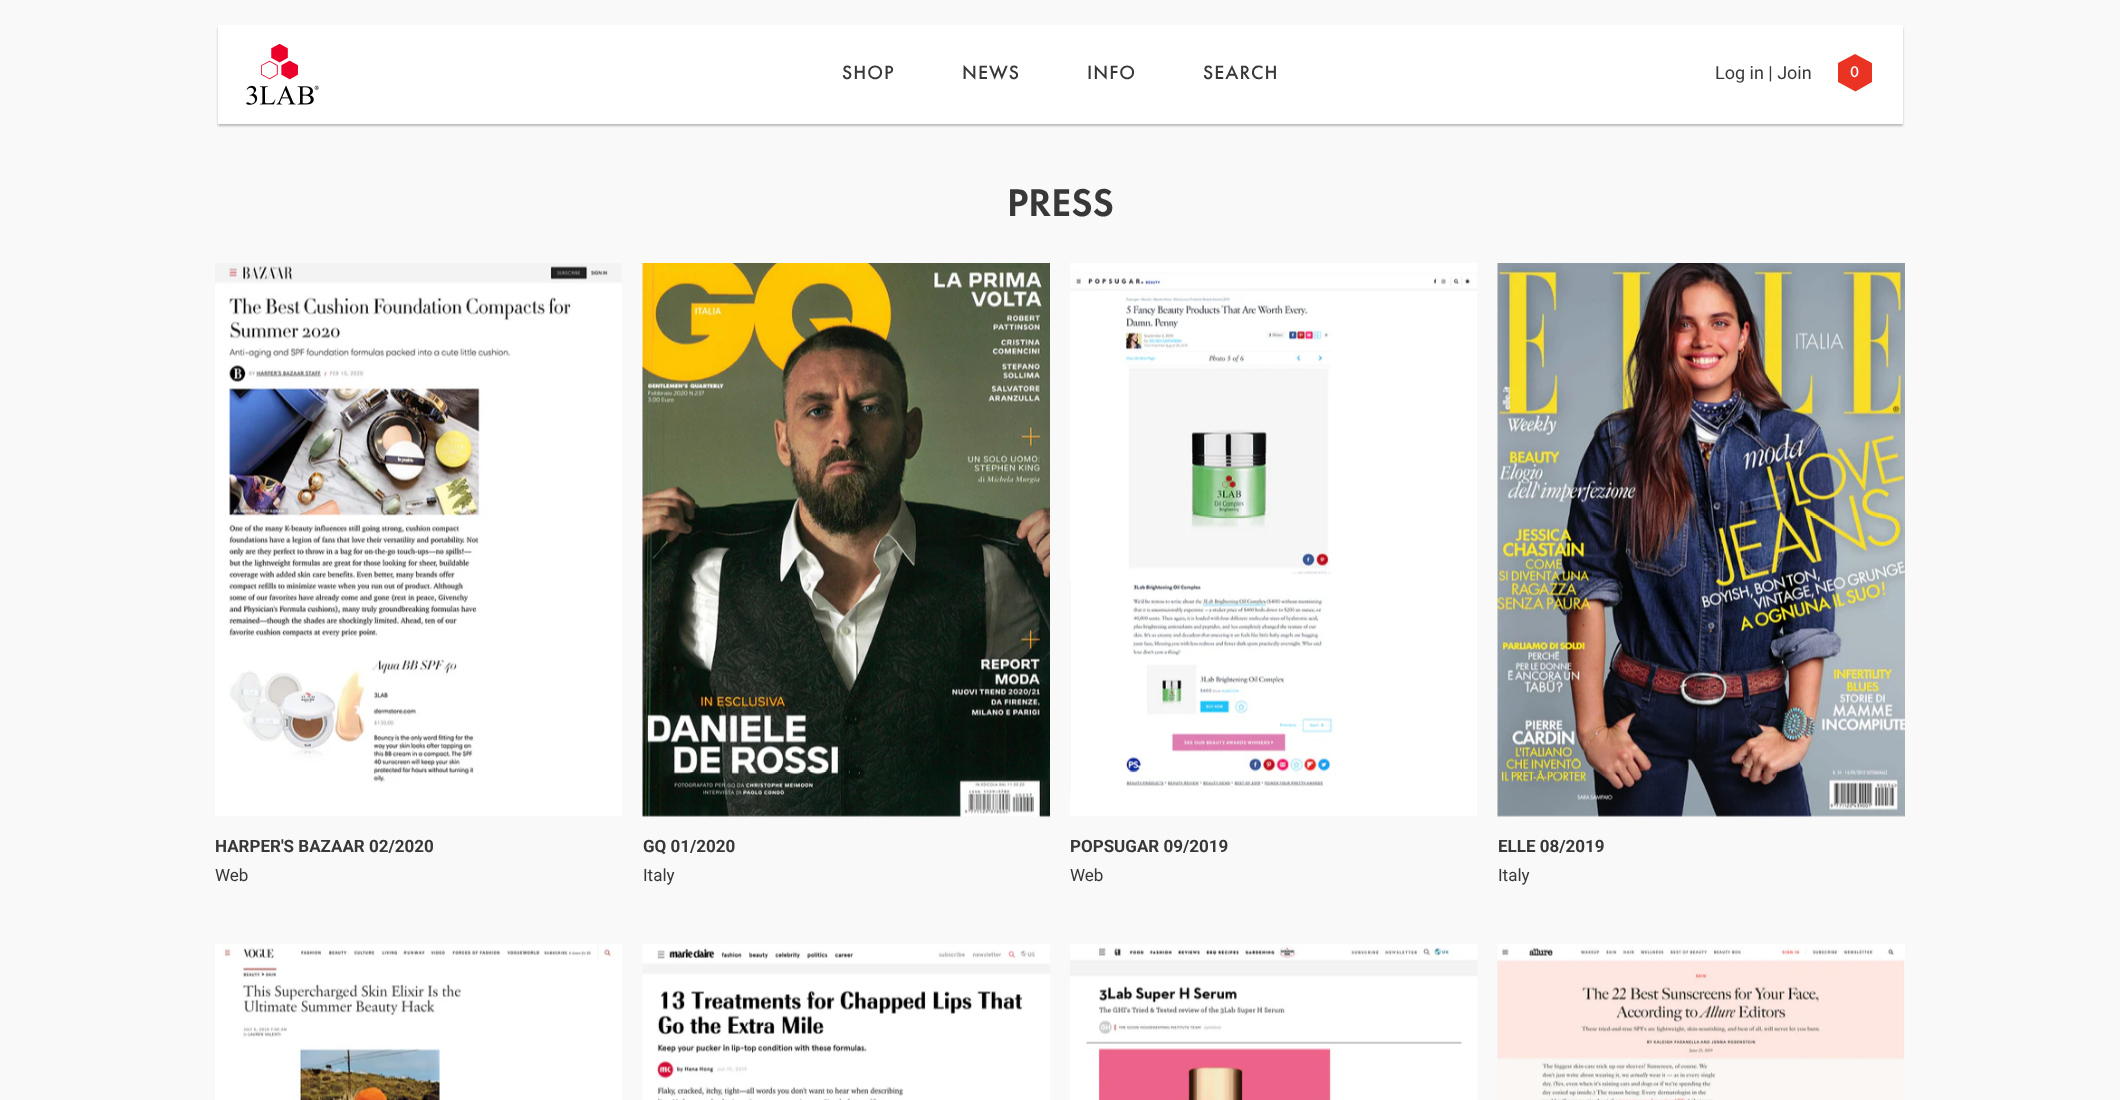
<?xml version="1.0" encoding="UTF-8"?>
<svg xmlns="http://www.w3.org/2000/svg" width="2120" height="1100">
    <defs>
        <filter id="blur1" x="-50%" y="-200%" width="200%" height="500%"><feGaussianBlur stdDeviation="1"/></filter>
    </defs>
    <rect width="100%" height="100%" fill="#F9F9F9"/>
    <rect x="218" y="28" width="1685" height="98" fill="#000000" fill-opacity="0.25" filter="url(#blur1)"/>
    <rect x="218" y="25" width="1685" height="99" fill="#FFFFFF"/>
    <image x="246" y="44" width="73" height="61" href="img_01.png"/>
    <text x="842" y="79" font-family="'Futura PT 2'" font-size="20" font-weight="500" letter-spacing="1" fill="#383838">SHOP</text>
    <text x="962" y="79" font-family="'Futura PT 2'" font-size="20" font-weight="500" letter-spacing="1" fill="#383838">NEWS</text>
    <text x="1087" y="79" font-family="'Futura PT 2'" font-size="20" font-weight="500" letter-spacing="1" fill="#383838">INFO</text>
    <text x="1203" y="79" font-family="'Futura PT 2'" font-size="20" font-weight="500" letter-spacing="1" fill="#383838">SEARCH</text>
    <text x="1715" y="79" font-family="Roboto" font-size="18" fill="#383838">Log in | Join</text>
    <path d="M 1838 72.5 V 63 L 1855 54 L 1870 62 C 1872.5 63.5 1872 62.5 1872 66.5 V 82 L 1855.5 91.5 L 1838 82 Z" fill="#EA3323"/>
    <text x="1850" y="77" font-family="'Futura PT 2'" font-size="16" font-weight="500" letter-spacing="1" fill="#FFFFFF">0</text>
    <text x="1007" y="216" font-family="Futura PT" font-size="40" font-weight="500" fill="#383838">PRESS</text>
    <image x="215" y="263" width="407" height="553" href="img_02.png"/>
    <text x="215" y="852" font-family="Roboto" font-size="17" font-weight="700" fill="#383838">HARPER'S BAZAAR 02/2020</text>
    <text x="215" y="881" font-family="Roboto" font-size="17" fill="#383838">Web</text>
    <image x="642" y="263" width="408" height="554" href="img_03.png"/>
    <text x="643" y="852" font-family="Roboto" font-size="17" font-weight="700" fill="#383838">GQ 01/2020</text>
    <text x="643" y="881" font-family="Roboto" font-size="17" fill="#383838">Italy</text>
    <image x="1070" y="263" width="407" height="553" href="img_04.png"/>
    <text x="1070" y="852" font-family="Roboto" font-size="17" font-weight="700" fill="#383838">POPSUGAR 09/2019</text>
    <text x="1070" y="881" font-family="Roboto" font-size="17" fill="#383838">Web</text>
    <image x="1497" y="263" width="408" height="554" href="img_05.png"/>
    <text x="1498" y="852" font-family="Roboto" font-size="17" font-weight="700" fill="#383838">ELLE 08/2019</text>
    <text x="1498" y="881" font-family="Roboto" font-size="17" fill="#383838">Italy</text>
    <image x="215" y="944" width="407" height="156" href="img_06.png"/>
    <image x="642" y="944" width="408" height="156" href="img_07.png"/>
    <image x="1070" y="944" width="408" height="156" href="img_08.png"/>
    <image x="1497" y="944" width="408" height="156" href="img_09.png"/>
</svg>
